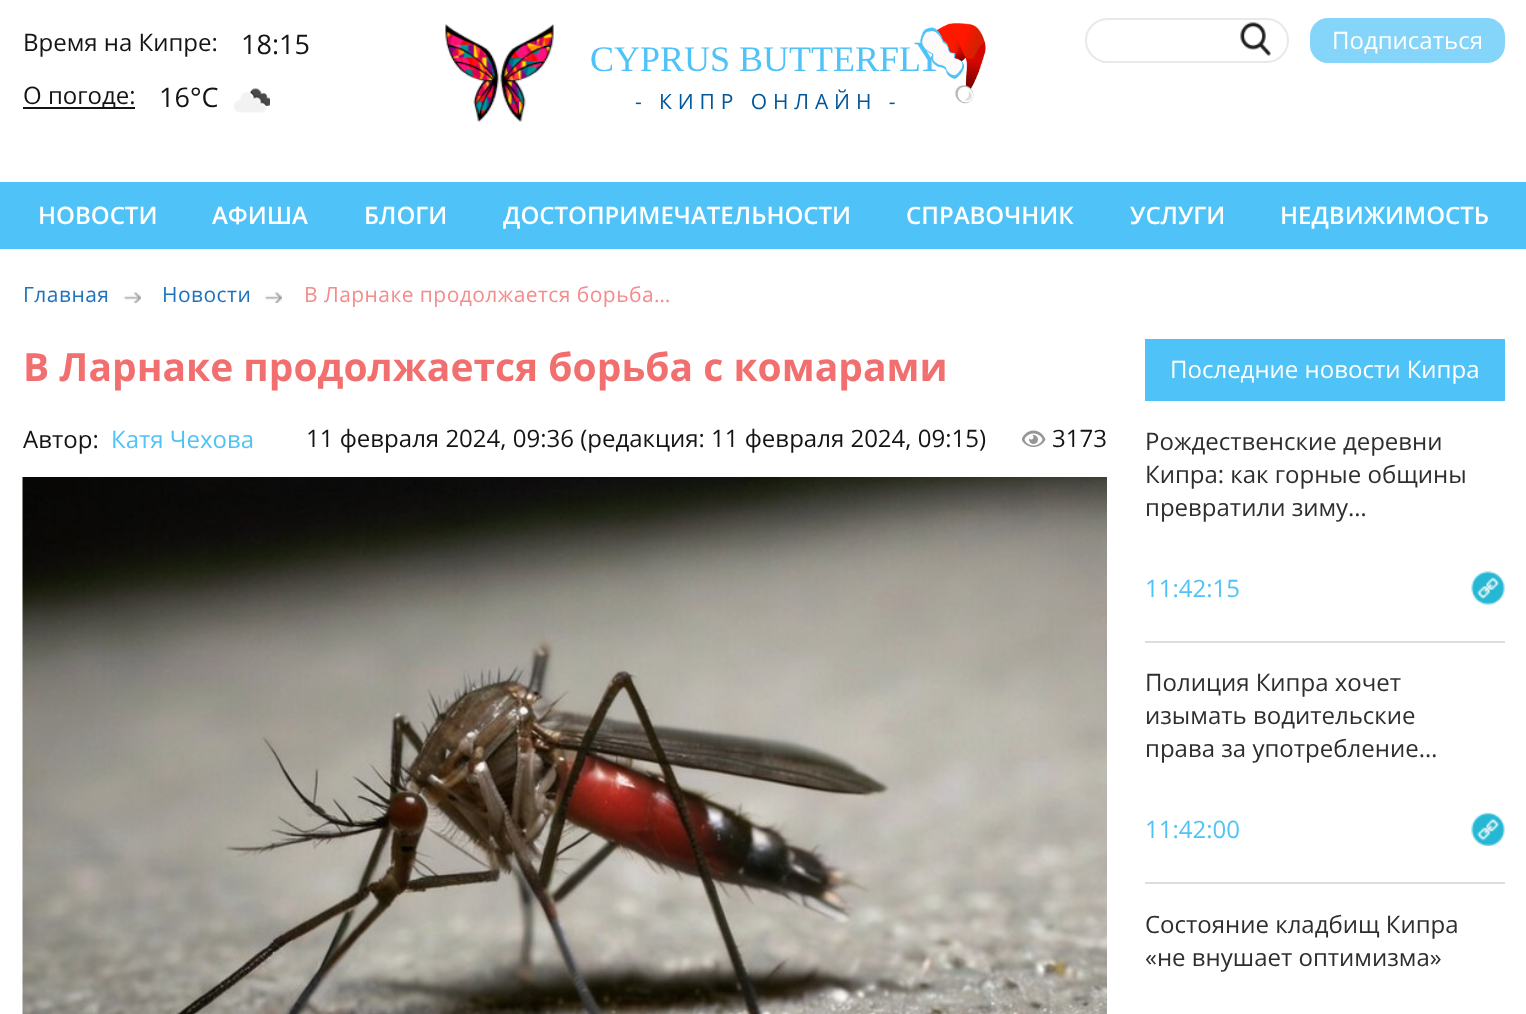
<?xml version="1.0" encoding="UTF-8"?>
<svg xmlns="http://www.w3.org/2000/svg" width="1526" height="1014">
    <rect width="100%" height="100%" fill="#FFFFFF"/>
    <text x="23" y="51" font-family="Open Sans" font-size="24" fill="#141414">Время на Кипре:</text>
    <text x="241" y="54" font-family="Open Sans" font-size="27" fill="#141414">18:15</text>
    <rect x="23" y="107" width="112" height="2" fill="#141414"/>
    <text x="23" y="104" font-family="Open Sans" font-size="24" fill="#141414">О погоде:</text>
    <text x="159" y="107" font-family="Open Sans" font-size="27" fill="#141414">16°С</text>
    <image x="234" y="88" width="36" height="25" href="img_01.png"/>
    <image x="445" y="23" width="109" height="99" href="img_02.png"/>
    <text x="590" y="71" font-family="Liberation Serif" font-size="36" fill="#4FC3F7">CYPRUS BUTTERFL</text>
    <text x="914" y="71" font-family="Liberation Serif" font-size="43" fill="#4FC3F7">Y</text>
    <image x="920" y="23" width="66" height="81" href="img_03.png"/>
    <text x="635" y="109" font-family="Open Sans" font-size="21" letter-spacing="5.9" fill="#01579B">- КИПР ОНЛАЙН -</text>
    <rect x="1086" y="19" width="202" height="43" rx="21.5" fill="none" stroke="#E9E9E9" stroke-width="2"/>
    <image x="1240" y="22" width="31" height="34" href="img_04.png"/>
    <rect x="1310" y="18" width="195" height="45" rx="18" fill="#84D5F9"/>
    <text x="1332" y="49" font-family="Open Sans" font-size="24" fill="#FFFFFF">Подписаться</text>
    <rect x="0" y="182" width="1526" height="67" fill="#4FC3F7"/>
    <text x="38" y="224" font-family="Open Sans" font-size="24" font-weight="600" fill="#FFFFFF">НОВОСТИ</text>
    <text x="212" y="224" font-family="Open Sans" font-size="24" font-weight="600" fill="#FFFFFF">АФИША</text>
    <text x="364" y="224" font-family="Open Sans" font-size="24" font-weight="600" fill="#FFFFFF">БЛОГИ</text>
    <text x="503" y="224" font-family="Open Sans" font-size="24" font-weight="600" fill="#FFFFFF">ДОСТОПРИМЕЧАТЕЛЬНОСТИ</text>
    <text x="906" y="224" font-family="Open Sans" font-size="24" font-weight="600" fill="#FFFFFF">СПРАВОЧНИК</text>
    <text x="1130" y="224" font-family="Open Sans" font-size="24" font-weight="600" fill="#FFFFFF">УСЛУГИ</text>
    <text x="1280" y="224" font-family="Open Sans" font-size="24" font-weight="600" fill="#FFFFFF">НЕДВИЖИМОСТЬ</text>
    <text x="23" y="302" font-family="Open Sans" font-size="21" letter-spacing="0.45" fill="#1E73BE">Главная</text>
    <image x="124" y="292" width="17" height="11" href="img_05.png"/>
    <text x="162" y="302" font-family="Open Sans" font-size="21" letter-spacing="0.45" fill="#1E73BE">Новости</text>
    <image x="265" y="292" width="17" height="11" href="img_05.png"/>
    <text x="304" y="302" font-family="Open Sans" font-size="21" letter-spacing="0.45" fill="#F58C8C">В Ларнаке продолжается борьба…</text>
    <text x="23" y="381" font-family="Open Sans" font-size="39" font-weight="700" fill="#F26F6F">В Ларнаке продолжается борьба с комарами</text>
    <text x="23" y="448" font-family="Open Sans" font-size="24" fill="#141414">Автор:</text>
    <text x="111" y="448" font-family="Open Sans" font-size="24" fill="#4FC3F7">Катя Чехова</text>
    <text x="306" y="447" font-family="Open Sans" font-size="24" fill="#141414">11 февраля 2024, 09:36 (редакция: 11 февраля 2024, 09:15)</text>
    <image x="1022" y="430" width="24" height="17" href="img_06.png"/>
    <text x="1052" y="447" font-family="Open Sans" font-size="24" fill="#141414">3173</text>
    <image x="22" y="477" width="1085" height="537" href="img_07.png"/>
    <rect x="1145" y="339" width="360" height="62" fill="#4FC3F7"/>
    <text x="1170" y="378" font-family="Open Sans" font-size="24" fill="#FFFFFF">Последние новости Кипра</text>
    <rect x="1145" y="641" width="360" height="2" fill="#DDDDDD"/>
    <text font-family="Open Sans" font-size="24" fill="#2E2E2E">
        <tspan x="1145" y="450">Рождественские деревни</tspan>
        <tspan x="1145" y="483">Кипра: как горные общины</tspan>
        <tspan x="1145" y="516">превратили зиму…</tspan>
    </text>
    <text x="1145" y="597" font-family="Open Sans" font-size="24" fill="#4FC3F7">11:42:15</text>
    <image x="1471" y="571" width="34" height="34" href="img_08.png"/>
    <rect x="1145" y="882" width="360" height="2" fill="#DDDDDD"/>
    <text font-family="Open Sans" font-size="24" fill="#2E2E2E">
        <tspan x="1145" y="691">Полиция Кипра хочет</tspan>
        <tspan x="1145" y="724">изымать водительские</tspan>
        <tspan x="1145" y="757">права за употребление…</tspan>
    </text>
    <text x="1145" y="838" font-family="Open Sans" font-size="24" fill="#4FC3F7">11:42:00</text>
    <image x="1471" y="813" width="34" height="33" href="img_09.png"/>
    <text font-family="Open Sans" font-size="24" fill="#2E2E2E">
        <tspan x="1145" y="933">Состояние кладбищ Кипра</tspan>
        <tspan x="1145" y="966">«не внушает оптимизма»</tspan>
    </text>
</svg>
